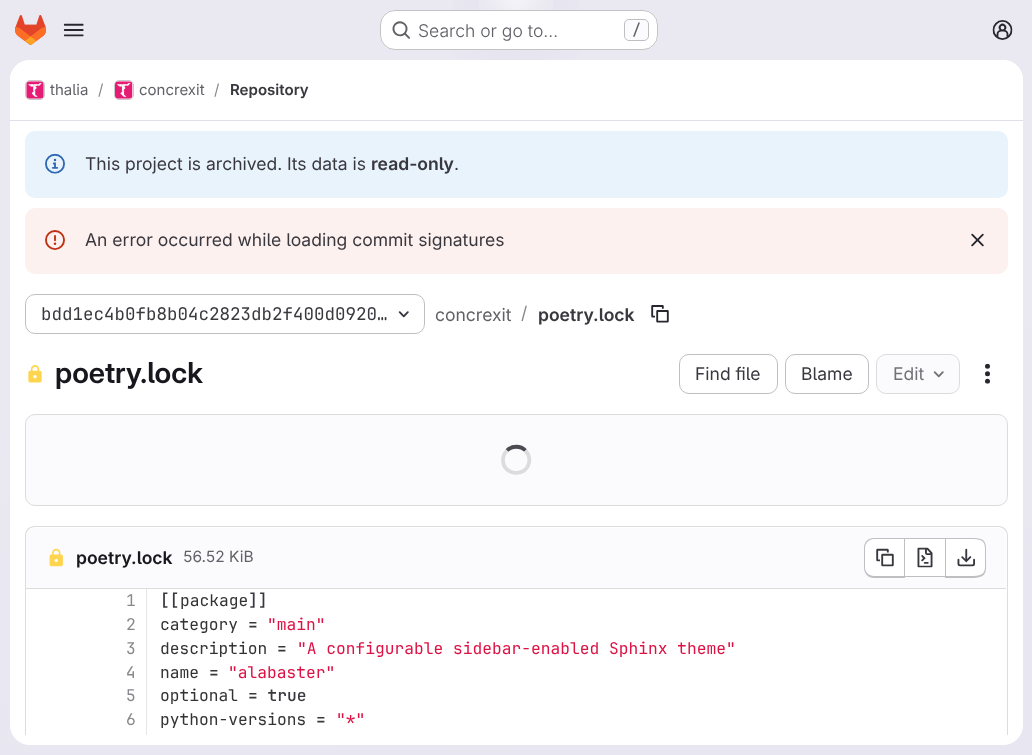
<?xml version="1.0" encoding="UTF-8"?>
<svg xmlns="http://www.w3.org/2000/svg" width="1032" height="755">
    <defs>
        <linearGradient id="g1" gradientUnits="userSpaceOnUse" x1="596" y1="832" x2="436" y2="-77"><stop offset="0" stop-color="#E8E6F0"/><stop offset="0.7" stop-color="#EAE9F2"/></linearGradient>
        <radialGradient id="g2" gradientUnits="userSpaceOnUse" cx="0" cy="0" r="1" gradientTransform="matrix(516 0 0 755 516 0)"><stop offset="0" stop-color="#E4E2ED"/><stop offset="0.17" stop-color="#E4E2ED" stop-opacity="0"/></radialGradient>
        <radialGradient id="g3" gradientUnits="userSpaceOnUse" cx="0" cy="0" r="1" gradientTransform="matrix(516 0 0 755 516 0)"><stop offset="0" stop-color="#E4E2EC"/><stop offset="0.12" stop-color="#E4E2EC" stop-opacity="0"/></radialGradient>
        <radialGradient id="g4" gradientUnits="userSpaceOnUse" cx="516" cy="0" r="915"><stop offset="0" stop-color="#FFFFFF" stop-opacity="0.6"/><stop offset="0.05" stop-color="#FFFFFF" stop-opacity="0"/></radialGradient>
        <clipPath id="clip1"><rect x="10" y="121" width="1013" height="614"/></clipPath>
    </defs>
    <rect width="100%" height="100%" fill="#FFFFFF"/>
    <rect x="0" y="0" width="1032" height="755" fill="url(#g1)"/>
    <rect x="453" y="0" width="126" height="60" fill="url(#g2)"/>
    <rect x="491" y="4" width="50" height="18" fill="url(#g3)"/>
    <rect x="478" y="0" width="76" height="10" fill="url(#g4)"/>
    <image x="15" y="15" width="31" height="30" href="img_01.png"/>
    <image x="63" y="23" width="21" height="14" href="img_02.png"/>
    <rect x="380" y="10" width="278" height="40" rx="15" fill="#FFFFFF"/>
    <rect x="380.5" y="10.5" width="277" height="39" rx="14.5" fill="none" stroke="#050506" stroke-opacity="0.24"/>
    <image x="392" y="21" width="18" height="18" href="img_03.png"/>
    <text x="418" y="37" font-family="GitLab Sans" font-size="17.5" font-weight="300" fill="#626168">Search or go to…</text>
    <rect x="624.5" y="19.5" width="24" height="21" rx="4.5" fill="#FBFAFD" stroke="#BFBFC3"/>
    <text x="632" y="35" font-family="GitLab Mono" font-size="15" font-weight="500" fill="#626168">/</text>
    <image x="992" y="20" width="21" height="20" href="img_04.png"/>
    <rect x="10" y="60" width="1013" height="685" rx="20" fill="#FFFFFF"/>
    <path d="M 30 60 H 1003 C 1014 60 1023 69 1023 80 V 121 H 10 V 80 C 10 69 19 60 30 60 Z" fill="#FFFFFF"/>
    <rect x="10" y="120" width="1013" height="1" fill="#E1DFEC"/>
    <rect x="25.5" y="80.5" width="19" height="19" rx="4.5" fill="none" stroke="#DCDCDE"/>
    <image x="26" y="81" width="18" height="18" href="img_05.png"/>
    <rect x="25.5" y="80.5" width="19" height="19" rx="4.5" fill="none" stroke="#050506" stroke-opacity="0.08"/>
    <text x="50" y="95" font-family="GitLab Sans" font-size="15" fill="#626168">thalia</text>
    <text x="98" y="95" font-family="GitLab Sans" font-size="15" fill="#89888D">/</text>
    <rect x="114.5" y="80.5" width="19" height="19" rx="4.5" fill="none" stroke="#DCDCDE"/>
    <image x="115" y="81" width="18" height="18" href="img_06.png"/>
    <rect x="114.5" y="80.5" width="19" height="19" rx="4.5" fill="none" stroke="#050506" stroke-opacity="0.08"/>
    <text x="139" y="95" font-family="GitLab Sans" font-size="15" fill="#626168">concrexit</text>
    <text x="214" y="95" font-family="GitLab Sans" font-size="15" fill="#89888D">/</text>
    <text x="230" y="95" font-family="GitLab Sans" font-size="15" font-weight="600" fill="#3A383F">Repository</text>
    <rect x="25" y="131" width="983" height="67" rx="10" fill="#E9F3FC"/>
    <image x="45" y="153" width="20" height="21" href="img_07.png"/>
    <text x="85" y="170" font-family="GitLab Sans" font-size="17.5" fill="#3A383F">This project is archived. Its data is</text>
    <text x="371" y="170" font-family="GitLab Sans" font-size="17.5" font-weight="600" fill="#3A383F">read-only</text>
    <text x="454" y="170" font-family="GitLab Sans" font-size="17.5" fill="#3A383F">.</text>
    <rect x="25" y="208" width="983" height="66" rx="10" fill="#FCF1EF"/>
    <image x="45" y="230" width="20" height="20" href="img_08.png"/>
    <text x="85" y="246" font-family="GitLab Sans" font-size="17.5" fill="#3A383F">An error occurred while loading commit signatures</text>
    <image x="971" y="233" width="13" height="14" href="img_09.png"/>
    <rect x="25.5" y="294.5" width="399" height="39" rx="9.5" fill="none" stroke="#BFBFC3"/>
    <text x="41" y="320" font-family="GitLab Mono" font-size="17.5" fill="#3A383F">bdd1ec4b0fb8b04c2823db2f400d0920…</text>
    <image x="398" y="311" width="11" height="7" href="img_10.png"/>
    <text x="435" y="321" font-family="GitLab Sans" font-size="17.5" fill="#626168">concrexit</text>
    <text x="521" y="319" font-family="GitLab Sans" font-size="17.5" fill="#89888D">/</text>
    <text x="538" y="321" font-family="GitLab Sans" font-size="17.5" font-weight="600" fill="#3A383F">poetry.lock</text>
    <image x="651" y="305" width="18" height="18" href="img_11.png"/>
    <image x="28" y="365" width="14" height="18" href="img_12.png"/>
    <text x="55" y="383" font-family="'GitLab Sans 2'" font-size="28.75" font-weight="600" fill="#18171D">poetry.lock</text>
    <rect x="679.5" y="354.5" width="98" height="39" rx="9.5" fill="none" stroke="#BFBFC3"/>
    <text x="695" y="380" font-family="GitLab Sans" font-size="17.5" fill="#3A383F">Find file</text>
    <rect x="785.5" y="354.5" width="83" height="39" rx="9.5" fill="none" stroke="#BFBFC3"/>
    <text x="801" y="380" font-family="GitLab Sans" font-size="17.5" fill="#3A383F">Blame</text>
    <rect x="876.5" y="354.5" width="83" height="39" rx="9.5" fill="#FBFAFD" stroke="#DCDCDE"/>
    <text x="893" y="380" font-family="GitLab Sans" font-size="17.5" fill="#737278">Edit</text>
    <image x="933" y="371" width="11" height="7" href="img_13.png"/>
    <image x="985" y="363" width="5" height="21" href="img_14.png"/>
    <rect x="25.5" y="414.5" width="982" height="91" rx="9.5" fill="#FBFAFD" stroke="#DCDCDE"/>
    <path d="M 507 450.5 C 512 445.5 520.5 445.5 525.5 450.5" fill="none" stroke="#4C4B51" stroke-width="3.8"/>
    <path d="M 525.5 450.5 C 528.5 454 530 458.5 529 462.5 C 526 478 503 475.5 503 460 C 503 456.5 504.5 453 507 450.5" fill="none" stroke="#DCDCDE" stroke-width="3.8"/>
    <g clip-path="url(#clip1)">
        <path d="M 35 526 C 29 526 25 530 25 536 V 744 L 26 745 V 536 C 26 531 30 527 35 527 H 998 C 1003 527 1007 531 1007 536 V 745 L 1008 744 V 536 C 1008 530 1004 526 998 526 Z" fill="#DCDCDE"/>
    </g>
    <path d="M 35 528 H 997 C 1002 528 1006 532 1006 537 V 589 H 26 V 537 C 26 532 30 528 35 528 Z" fill="#FBFAFD"/>
    <rect x="26" y="588" width="980" height="1" fill="#DCDCDE"/>
    <image x="49" y="548" width="14" height="19" href="img_15.png"/>
    <text x="76" y="564" font-family="GitLab Sans" font-size="17.5" font-weight="600" fill="#18171D">poetry.lock</text>
    <text x="183" y="562" font-family="GitLab Sans" font-size="15.5" fill="#626168">56.52 KiB</text>
    <path d="M 874 539 H 904 V 576 H 874 C 869 576 865 572 865 567 V 548 C 865 543 869 539 874 539 Z" fill="#FFFFFF"/>
    <path d="M 874 538 H 904 V 578 H 874 C 868 578 864 573 864 568 V 548 C 864 542 868 538 874 538 Z M 874 539 H 904 V 576 H 874 C 869 576 865 572 865 568 V 548 C 865 543 869 539 874 539 Z" fill="#BFBFC3" fill-rule="evenodd"/>
    <image x="876" y="548" width="18" height="19" href="img_16.png"/>
    <rect x="905" y="539" width="40" height="37" fill="#FFFFFF"/>
    <rect x="905" y="538" width="40" height="1" fill="#BFBFC3"/>
    <rect x="905" y="576" width="40" height="1" fill="#BFBFC3"/>
    <rect x="904" y="538" width="1" height="40" fill="#BFBFC3"/>
    <image x="917" y="547" width="16" height="21" href="img_17.png"/>
    <path d="M 946 539 H 976 C 981 539 985 543 985 548 V 567 C 985 572 981 576 976 576 H 946 Z" fill="#FFFFFF"/>
    <path d="M 946 538 H 971 C 988 538 986 543 986 558 C 986 572 988 578 971 578 H 946 Z M 946 539 H 971 C 987 539 985 544 985 558 C 985 571 987 576 971 576 H 946 Z" fill="#BFBFC3" fill-rule="evenodd"/>
    <rect x="945" y="538" width="1" height="40" fill="#BFBFC3"/>
    <image x="957" y="548" width="18" height="19" href="img_18.png"/>
    <text font-family="GitLab Mono" font-size="16.25" fill="#89888D">
        <tspan x="126" y="606">1</tspan>
        <tspan x="126" y="630">2</tspan>
        <tspan x="126" y="654">3</tspan>
        <tspan x="126" y="678">4</tspan>
        <tspan x="126" y="701">5</tspan>
        <tspan x="126" y="725">6</tspan>
    </text>
    <rect x="146" y="589" width="1" height="146" fill="#E6E6E6"/>
    <text x="160" y="606" font-family="GitLab Mono" font-size="16.25" font-weight="600" fill="#3A383F">[[</text>
    <text x="180" y="606" font-family="GitLab Mono" font-size="16.25" fill="#333333">package</text>
    <text x="248" y="606" font-family="GitLab Mono" font-size="16.25" font-weight="600" fill="#3A383F">]]</text>
    <text x="160" y="630" font-family="GitLab Mono" font-size="16.25" fill="#333333">category</text>
    <text x="248" y="630" font-family="GitLab Mono" font-size="16.25" font-weight="600" fill="#3A383F">=</text>
    <text x="267" y="630" font-family="GitLab Mono" font-size="16.25" fill="#DD1144">"main"</text>
    <text x="160" y="654" font-family="GitLab Mono" font-size="16.25" fill="#333333">description</text>
    <text x="277" y="654" font-family="GitLab Mono" font-size="16.25" font-weight="600" fill="#3A383F">=</text>
    <text x="297" y="654" font-family="GitLab Mono" font-size="16.25" fill="#DD1144">"A configurable sidebar-enabled Sphinx theme"</text>
    <text x="160" y="678" font-family="GitLab Mono" font-size="16.25" fill="#333333">name</text>
    <text x="209" y="678" font-family="GitLab Mono" font-size="16.25" font-weight="600" fill="#3A383F">=</text>
    <text x="228" y="678" font-family="GitLab Mono" font-size="16.25" fill="#DD1144">"alabaster"</text>
    <text x="160" y="701" font-family="GitLab Mono" font-size="16.25" fill="#333333">optional</text>
    <text x="248" y="701" font-family="GitLab Mono" font-size="16.25" font-weight="600" fill="#3A383F">= true</text>
    <text x="160" y="725" font-family="GitLab Mono" font-size="16.25" fill="#333333">python-versions</text>
    <text x="316" y="725" font-family="GitLab Mono" font-size="16.25" font-weight="600" fill="#3A383F">=</text>
    <text x="336" y="725" font-family="GitLab Mono" font-size="16.25" fill="#DD1144">"*"</text>
</svg>
